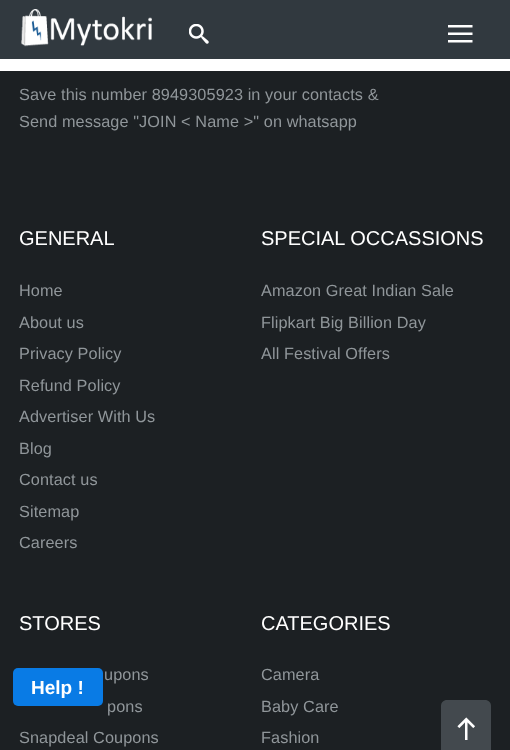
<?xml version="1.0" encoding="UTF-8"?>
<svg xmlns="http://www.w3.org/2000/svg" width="510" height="750">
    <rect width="100%" height="100%" fill="#1C2023"/>
    <rect x="0" y="0" width="510" height="59" fill="#31393F"/>
    <image x="21" y="9" width="131" height="38" href="img_01.png"/>
    <image x="189" y="24" width="20" height="20" href="img_02.png"/>
    <image x="448" y="25" width="25" height="18" href="img_03.png"/>
    <rect x="0" y="59" width="510" height="12" fill="#FFFFFF"/>
    <text font-family="Liberation Sans" font-size="16.25" letter-spacing="0.1" fill="#90969A">
        <tspan x="19" y="100">Save this number 8949305923 in your contacts &amp;</tspan>
        <tspan x="19" y="127">Send message "JOIN &lt; Name &gt;" on whatsapp</tspan>
    </text>
    <text x="19" y="245" font-family="Liberation Sans" font-size="20" fill="#FFFFFF">GENERAL</text>
    <text font-family="Liberation Sans" font-size="16.25" letter-spacing="0.1" fill="#90969A">
        <tspan x="19" y="296">Home</tspan>
        <tspan x="19" y="328">About us</tspan>
        <tspan x="19" y="359">Privacy Policy</tspan>
        <tspan x="19" y="391">Refund Policy</tspan>
        <tspan x="19" y="422">Advertiser With Us</tspan>
        <tspan x="19" y="454">Blog</tspan>
        <tspan x="19" y="485">Contact us</tspan>
        <tspan x="19" y="517">Sitemap</tspan>
        <tspan x="19" y="548">Careers</tspan>
    </text>
    <text x="261" y="245" font-family="Liberation Sans" font-size="20" fill="#FFFFFF">SPECIAL OCCASSIONS</text>
    <text font-family="Liberation Sans" font-size="16.25" letter-spacing="0.1" fill="#90969A">
        <tspan x="261" y="296">Amazon Great Indian Sale</tspan>
        <tspan x="261" y="328">Flipkart Big Billion Day</tspan>
        <tspan x="261" y="359">All Festival Offers</tspan>
    </text>
    <text x="19" y="630" font-family="Liberation Sans" font-size="20" fill="#FFFFFF">STORES</text>
    <text x="104" y="680" font-family="Liberation Sans" font-size="16.25" letter-spacing="0.1" fill="#90969A">upons</text>
    <text x="107" y="712" font-family="Liberation Sans" font-size="16.25" letter-spacing="0.1" fill="#90969A">pons</text>
    <text x="19" y="743" font-family="Liberation Sans" font-size="16.25" letter-spacing="0.1" fill="#90969A">Snapdeal Coupons</text>
    <text x="261" y="630" font-family="Liberation Sans" font-size="20" fill="#FFFFFF">CATEGORIES</text>
    <text font-family="Liberation Sans" font-size="16.25" letter-spacing="0.1" fill="#90969A">
        <tspan x="261" y="680">Camera</tspan>
        <tspan x="261" y="712">Baby Care</tspan>
        <tspan x="261" y="743">Fashion</tspan>
    </text>
    <rect x="13" y="668" width="90" height="38" rx="5" fill="#097BE5"/>
    <text x="31" y="694" font-family="Liberation Sans" font-size="19" font-weight="700" fill="#FFFFFF">Help !</text>
    <path d="M 447 700 H 485 C 488.5 700 491 702.5 491 706 V 750 H 441 V 706 C 441 702.5 443.5 700 447 700 Z" fill="#43494E"/>
    <image x="457" y="717" width="18" height="23" href="img_04.png"/>
</svg>
